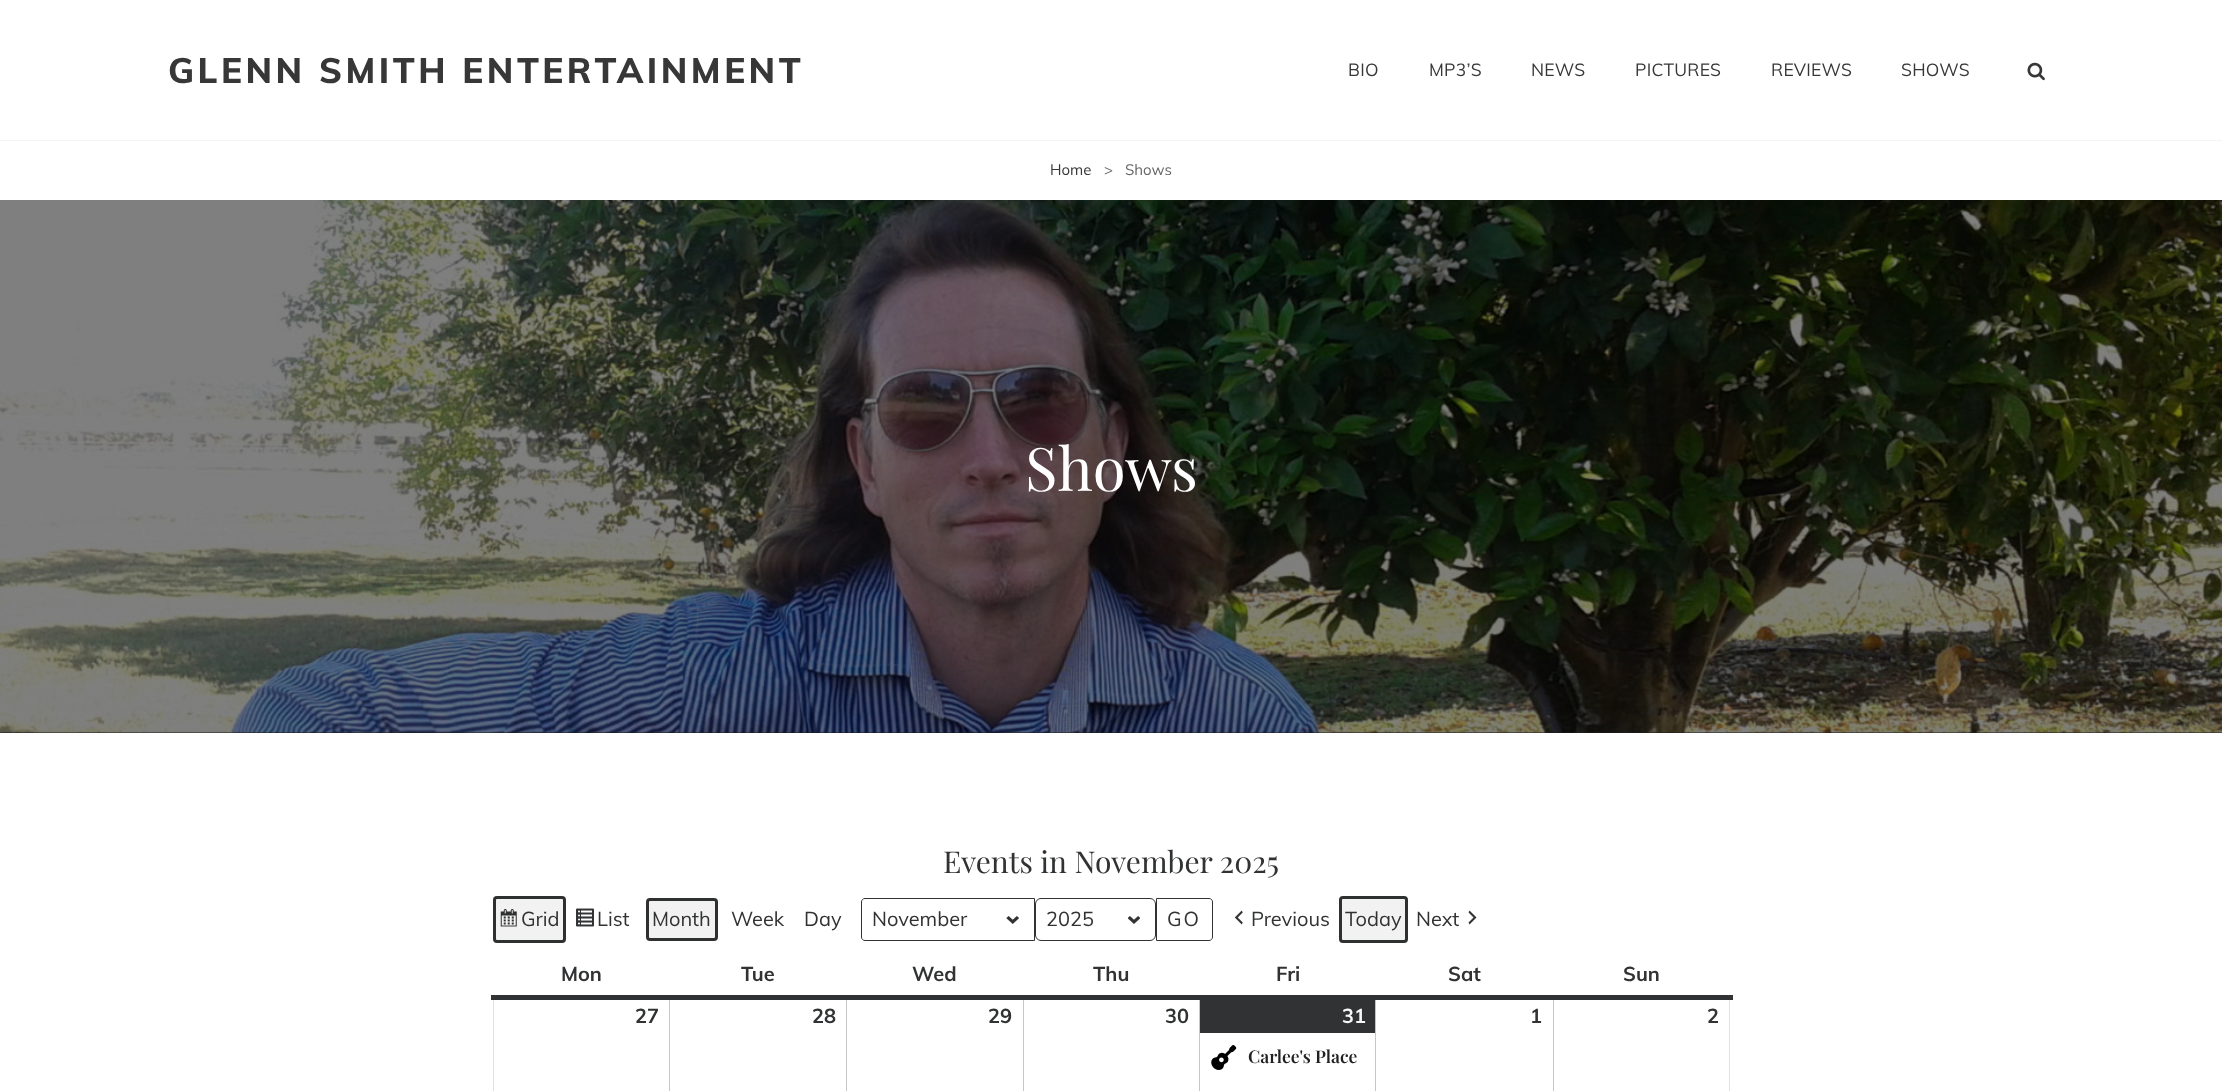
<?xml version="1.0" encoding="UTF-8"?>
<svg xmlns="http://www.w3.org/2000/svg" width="2222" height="1091">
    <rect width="100%" height="100%" fill="#FFFFFF"/>
    <rect x="493" y="998" width="1" height="93" fill="#E0E0E0"/>
    <rect x="669" y="998" width="1" height="93" fill="#C5C5C5"/>
    <rect x="846" y="998" width="1" height="93" fill="#C5C5C5"/>
    <rect x="1023" y="998" width="1" height="93" fill="#C5C5C5"/>
    <rect x="1199" y="998" width="1" height="93" fill="#C5C5C5"/>
    <rect x="1375" y="998" width="1" height="93" fill="#C5C5C5"/>
    <rect x="1553" y="998" width="1" height="93" fill="#C5C5C5"/>
    <rect x="1729" y="998" width="1" height="93" fill="#E0E0E0"/>
    <rect x="0" y="140" width="2222" height="1" fill="#F4F4F4"/>
    <text x="168" y="83" font-family="Muli" font-size="35" font-weight="800" letter-spacing="3.5" fill="#373737">GLENN SMITH ENTERTAINMENT</text>
    <text x="1348" y="76" font-family="Muli" font-size="17.5" letter-spacing="0.25" fill="#373737">BIO</text>
    <text x="1429" y="76" font-family="Muli" font-size="17.5" letter-spacing="0.25" fill="#373737">MP3’S</text>
    <text x="1531" y="76" font-family="Muli" font-size="17.5" letter-spacing="0.25" fill="#373737">NEWS</text>
    <text x="1635" y="76" font-family="Muli" font-size="17.5" letter-spacing="0.25" fill="#373737">PICTURES</text>
    <text x="1771" y="76" font-family="Muli" font-size="17.5" letter-spacing="0.25" fill="#373737">REVIEWS</text>
    <text x="1901" y="76" font-family="Muli" font-size="17.5" letter-spacing="0.25" fill="#373737">SHOWS</text>
    <image x="2027" y="62" width="18" height="19" href="img_01.png"/>
    <text x="1050" y="175" font-family="Muli" font-size="15" fill="#373737">Home</text>
    <text x="1104" y="175" font-family="Muli" font-size="15" fill="#676767">&gt;</text>
    <text x="1125" y="175" font-family="Muli" font-size="15" fill="#676767">Shows</text>
    <rect x="0" y="732" width="2222" height="1" fill="#1C1C1C"/>
    <image x="0" y="200" width="2222" height="533" href="img_02.png"/>
    <text x="1025" y="491" font-family="Playfair Display" font-size="60" fill="#FFFFFF">Shows</text>
    <text x="943" y="873" font-family="Playfair Display" font-size="30" fill="#313233">Events in November 2025</text>
    <rect x="493" y="896" width="73" height="47" rx="4" fill="#F2F2F2"/>
    <image x="500" y="909" width="17" height="18" href="img_03.png"/>
    <rect x="494.5" y="897.5" width="70" height="44" rx="2.5" fill="none" stroke="#2F3030" stroke-width="3"/>
    <text x="521" y="926" font-family="Muli" font-size="20" fill="#313233">Grid</text>
    <image x="576" y="908" width="18" height="19" href="img_04.png"/>
    <text x="597" y="926" font-family="Muli" font-size="20" fill="#313233">List</text>
    <rect x="646" y="898" width="72" height="43" rx="4" fill="#F2F2F2"/>
    <rect x="647.5" y="899.5" width="69" height="40" rx="2.5" fill="none" stroke="#2F3030" stroke-width="3"/>
    <text x="652" y="926" font-family="Muli" font-size="20" fill="#313233">Month</text>
    <text x="731" y="926" font-family="Muli" font-size="20" fill="#313233">Week</text>
    <text x="804" y="926" font-family="Muli" font-size="20" fill="#313233">Day</text>
    <image x="1006" y="916" width="13" height="8" href="img_05.png"/>
    <path d="M 865 898.5 H 1034.5 V 940.5 H 865 C 863 940.5 861.5 939 861.5 937 V 902 C 861.5 900 863 898.5 865 898.5 Z" fill="none" stroke="#313233"/>
    <text x="872" y="926" font-family="Muli" font-size="20" fill="#313233">November</text>
    <image x="1128" y="916" width="12" height="8" href="img_06.png"/>
    <rect x="1035.5" y="898.5" width="120" height="42" rx="5.5" fill="none" stroke="#313233"/>
    <text x="1046" y="926" font-family="Muli" font-size="20" fill="#313233">2025</text>
    <path d="M 1156.5 898.5 H 1209 C 1211 898.5 1212.5 900 1212.5 902 V 937 C 1212.5 939 1211 940.5 1209 940.5 H 1156.5 Z" fill="none" stroke="#313233"/>
    <text x="1167" y="926" font-family="Muli" font-size="20" letter-spacing="2" fill="#313233">GO</text>
    <image x="1234" y="910" width="9" height="15" href="img_07.png"/>
    <text x="1251" y="926" font-family="Muli" font-size="20" fill="#313233">Previous</text>
    <rect x="1339" y="896" width="69" height="47" rx="4" fill="#F2F2F2"/>
    <rect x="1340.5" y="897.5" width="66" height="44" rx="2.5" fill="none" stroke="#2F3030" stroke-width="3"/>
    <text x="1345" y="926" font-family="Muli" font-size="20" fill="#313233">Today</text>
    <text x="1416" y="926" font-family="Muli" font-size="20" fill="#313233">Next</text>
    <image x="1468" y="910" width="9" height="15" href="img_08.png"/>
    <rect x="491" y="995" width="1242" height="5" fill="#313233"/>
    <text x="561" y="981" font-family="Muli" font-size="20" font-weight="700" fill="#313233">Mon</text>
    <text x="741" y="981" font-family="Muli" font-size="20" font-weight="700" fill="#313233">Tue</text>
    <text x="912" y="981" font-family="Muli" font-size="20" font-weight="700" fill="#313233">Wed</text>
    <text x="1093" y="981" font-family="Muli" font-size="20" font-weight="700" fill="#313233">Thu</text>
    <text x="1276" y="981" font-family="Muli" font-size="20" font-weight="700" fill="#313233">Fri</text>
    <text x="1448" y="981" font-family="Muli" font-size="20" font-weight="700" fill="#313233">Sat</text>
    <text x="1623" y="981" font-family="Muli" font-size="20" font-weight="700" fill="#313233">Sun</text>
    <text x="635" y="1023" font-family="Muli" font-size="20" font-weight="700" fill="#313233">27</text>
    <text x="812" y="1023" font-family="Muli" font-size="20" font-weight="700" fill="#313233">28</text>
    <text x="988" y="1023" font-family="Muli" font-size="20" font-weight="700" fill="#313233">29</text>
    <text x="1165" y="1023" font-family="Muli" font-size="20" font-weight="700" fill="#313233">30</text>
    <rect x="1200" y="1000" width="175" height="33" fill="#313233"/>
    <text x="1342" y="1023" font-family="Muli" font-size="20" font-weight="700" fill="#F6F7F7">31</text>
    <image x="1211" y="1045" width="26" height="25" href="img_09.png"/>
    <text x="1248" y="1063" font-family="Playfair Display" font-size="17.5" font-weight="600" fill="#212121">Carlee's Place</text>
    <text x="1530" y="1023" font-family="Muli" font-size="20" font-weight="700" fill="#313233">1</text>
    <text x="1707" y="1023" font-family="Muli" font-size="20" font-weight="700" fill="#313233">2</text>
</svg>
